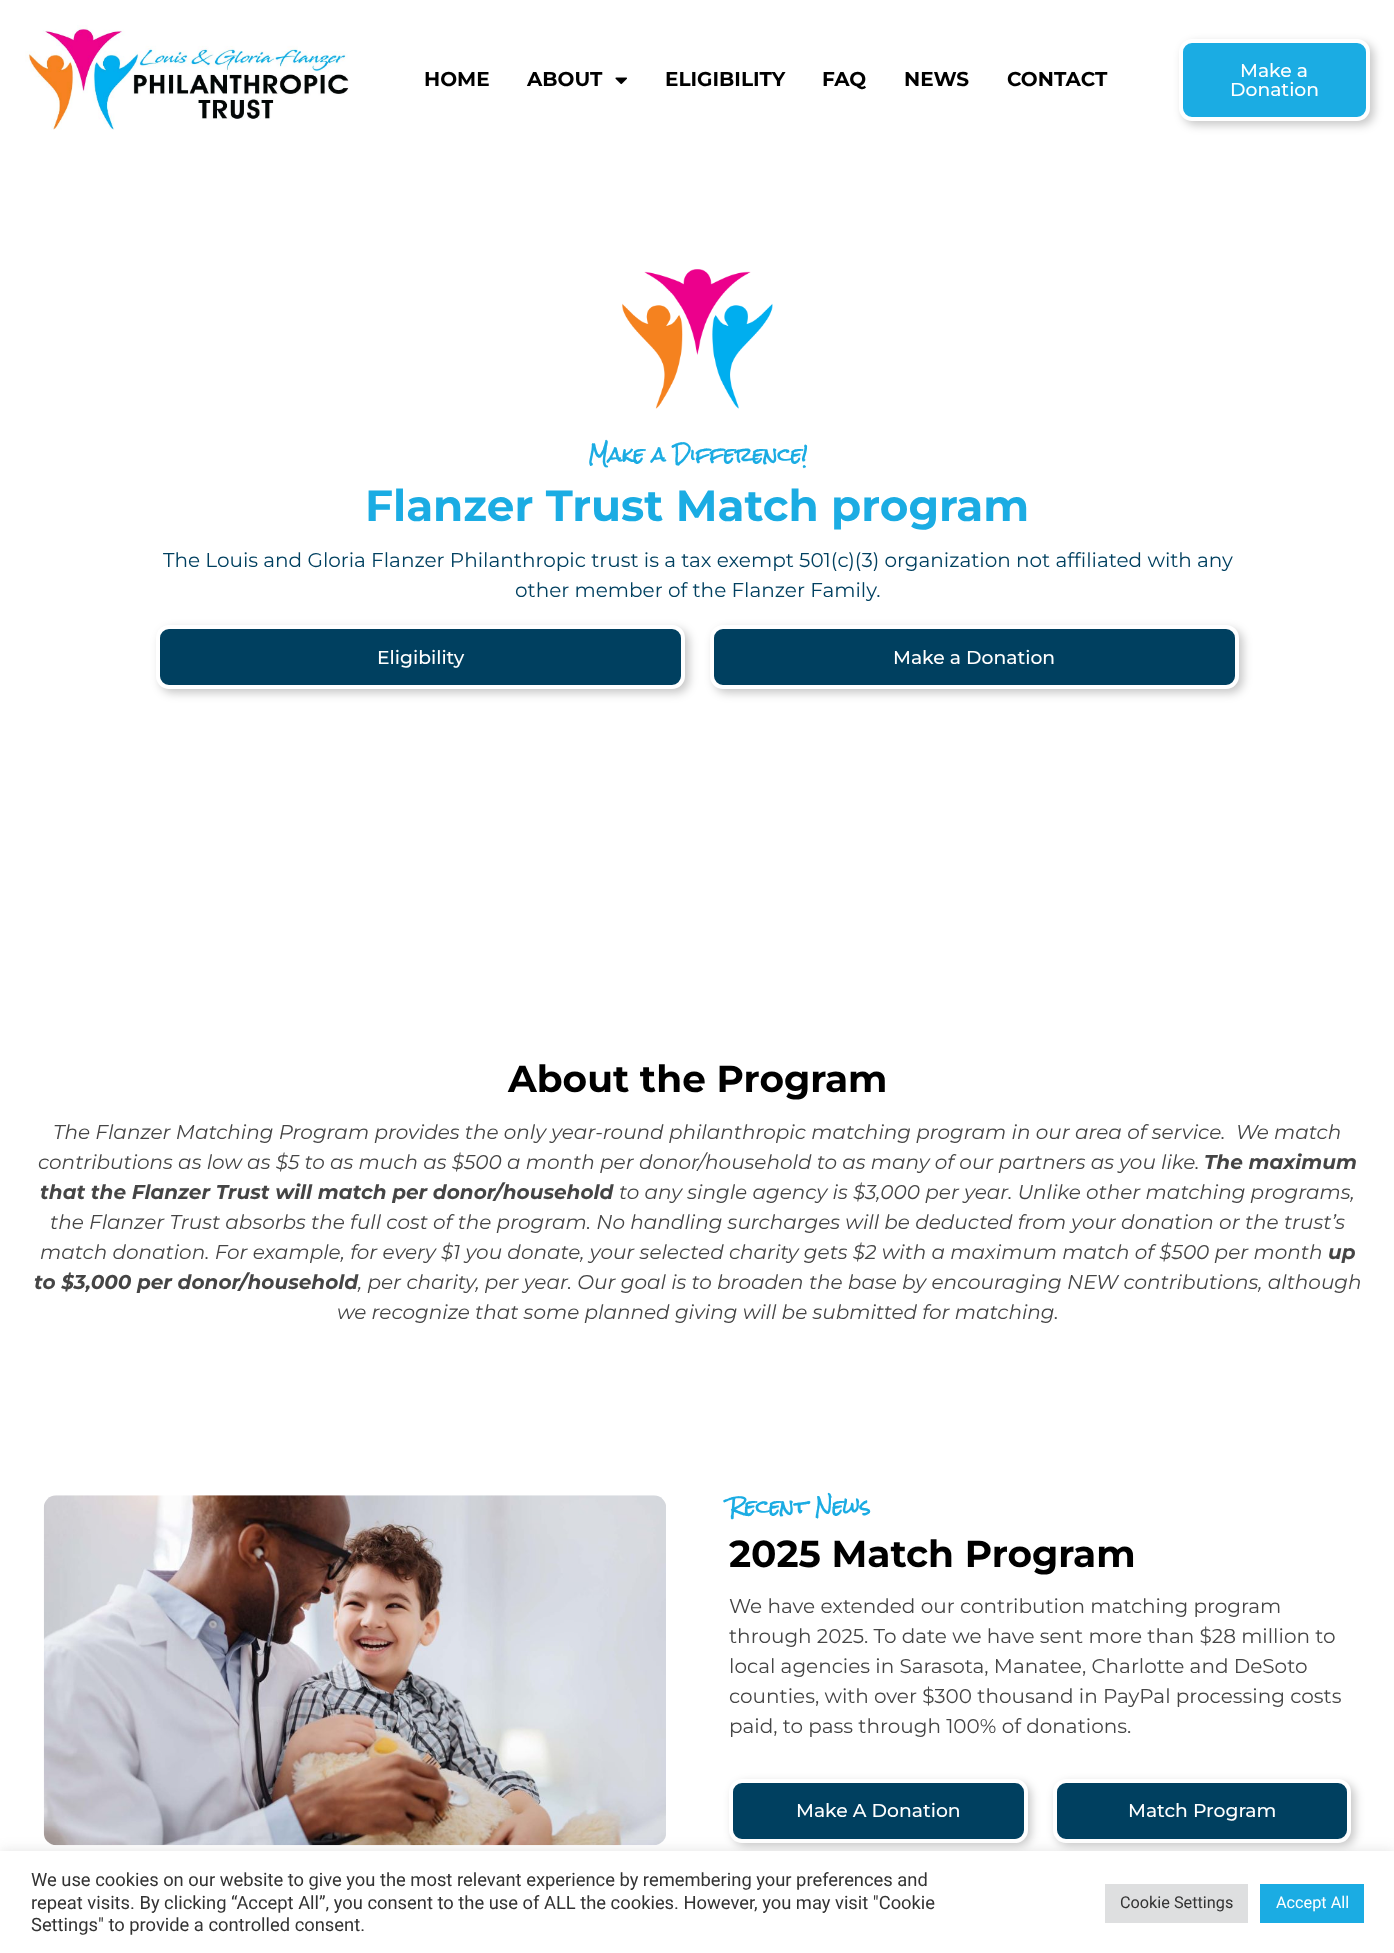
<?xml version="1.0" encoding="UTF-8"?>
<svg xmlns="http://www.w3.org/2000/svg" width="1394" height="1953">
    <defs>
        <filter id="blur1" x="-50%" y="-200%" width="200%" height="500%"><feGaussianBlur stdDeviation="5"/></filter>
        <filter id="blur2" x="-50%" y="-200%" width="200%" height="500%"><feGaussianBlur stdDeviation="6"/></filter>
    </defs>
    <rect width="100%" height="100%" fill="#FFFFFF"/>
    <image x="25" y="25" width="324" height="105" href="img_01.png"/>
    <text x="424" y="86" font-family="Montserrat" font-size="20" font-weight="700" fill="#000000">HOME</text>
    <text x="527" y="86" font-family="Montserrat" font-size="20" font-weight="700" fill="#000000">ABOUT</text>
    <image x="615" y="77" width="12" height="8" href="img_02.png"/>
    <text x="665" y="86" font-family="Montserrat" font-size="20" font-weight="700" fill="#000000">ELIGIBILITY</text>
    <text x="822" y="86" font-family="Montserrat" font-size="20" font-weight="700" fill="#000000">FAQ</text>
    <text x="904" y="86" font-family="Montserrat" font-size="20" font-weight="700" fill="#000000">NEWS</text>
    <text x="1007" y="86" font-family="Montserrat" font-size="20" font-weight="700" fill="#000000">CONTACT</text>
    <rect x="1183" y="43" width="191" height="82" rx="13" fill="#000000" fill-opacity="0.22" filter="url(#blur1)"/>
    <rect x="1181" y="41" width="187" height="78" rx="11" fill="#1BACE3" stroke="#FFFFFF" stroke-width="4"/>
    <text x="1240" y="77" font-family="Montserrat" font-size="18.75" font-weight="500" fill="#FFFFFF">Make a</text>
    <text x="1230" y="96" font-family="Montserrat" font-size="18.75" font-weight="500" fill="#FFFFFF">Donation</text>
    <image x="622" y="269" width="151" height="140" href="img_03.png"/>
    <text x="588" y="462" font-family="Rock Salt" font-size="18.75" font-weight="700" fill="#1BACE3">Make a Difference!</text>
    <text x="365" y="521" font-family="Montserrat" font-size="43.75" font-weight="700" fill="#1BACE3">Flanzer Trust Match program</text>
    <text x="163" y="567" font-family="Montserrat" font-size="20" fill="#004060">The Louis and Gloria Flanzer Philanthropic trust is a tax exempt 501(c)(3) organization not affiliated with any</text>
    <text x="515" y="597" font-family="Montserrat" font-size="20" fill="#004060">other member of the Flanzer Family.</text>
    <rect x="160" y="629" width="529" height="64" rx="13" fill="#000000" fill-opacity="0.22" filter="url(#blur1)"/>
    <rect x="158" y="627" width="525" height="60" rx="11" fill="#004060" stroke="#FFFFFF" stroke-width="4"/>
    <text x="377" y="664" font-family="Montserrat" font-size="18.75" font-weight="500" fill="#FFFFFF">Eligibility</text>
    <rect x="714" y="629" width="529" height="64" rx="13" fill="#000000" fill-opacity="0.22" filter="url(#blur1)"/>
    <rect x="712" y="627" width="525" height="60" rx="11" fill="#004060" stroke="#FFFFFF" stroke-width="4"/>
    <text x="893" y="664" font-family="Montserrat" font-size="18.75" font-weight="500" fill="#FFFFFF">Make a Donation</text>
    <text x="508" y="1092" font-family="Montserrat" font-size="37.5" font-weight="700" fill="#000000">About the Program</text>
    <text x="53" y="1139" font-family="Montserrat" font-size="20" font-style="italic" fill="#454545" xml:space="preserve">The Flanzer Matching Program provides the only year-round philanthropic matching program in our area of service.  We match</text>
    <text x="38" y="1169" font-family="Montserrat" font-size="20" font-style="italic" fill="#454545">contributions as low as $5 to as much as $500 a month per donor/household to as many of our partners as you like.</text>
    <text x="1204" y="1169" font-family="Montserrat" font-size="20" font-weight="700" font-style="italic" fill="#454545">The maximum</text>
    <text x="40" y="1199" font-family="Montserrat" font-size="20" font-weight="700" font-style="italic" fill="#454545">that the Flanzer Trust will match per donor/household</text>
    <text x="619" y="1199" font-family="Montserrat" font-size="20" font-style="italic" fill="#454545">to any single agency is $3,000 per year. Unlike other matching programs,</text>
    <text x="50" y="1229" font-family="Montserrat" font-size="20" font-style="italic" fill="#454545">the Flanzer Trust absorbs the full cost of the program. No handling surcharges will be deducted from your donation or the trust’s</text>
    <text x="40" y="1259" font-family="Montserrat" font-size="20" font-style="italic" fill="#454545">match donation. For example, for every $1 you donate, your selected charity gets $2 with a maximum match of $500 per month</text>
    <text x="1328" y="1259" font-family="Montserrat" font-size="20" font-weight="700" font-style="italic" fill="#454545">up</text>
    <text x="34" y="1289" font-family="Montserrat" font-size="20" font-weight="700" font-style="italic" fill="#454545">to $3,000 per donor/household</text>
    <text x="358" y="1289" font-family="Montserrat" font-size="20" font-style="italic" fill="#454545">, per charity, per year. Our goal is to broaden the base by encouraging NEW contributions, although</text>
    <text x="337" y="1319" font-family="Montserrat" font-size="20" font-style="italic" fill="#454545">we recognize that some planned giving will be submitted for matching.</text>
    <image x="43" y="1495" width="623" height="351" href="img_04.png"/>
    <text x="729" y="1514" font-family="Rock Salt" font-size="18.75" font-weight="700" fill="#1BACE3">Recent News</text>
    <text x="729" y="1567" font-family="Montserrat" font-size="37.5" font-weight="700" fill="#000000">2025 Match Program</text>
    <text font-family="Montserrat" font-size="20" fill="#454545">
        <tspan x="729" y="1613">We have extended our contribution matching program</tspan>
        <tspan x="729" y="1643">through 2025. To date we have sent more than $28 million to</tspan>
        <tspan x="729" y="1673">local agencies in Sarasota, Manatee, Charlotte and DeSoto</tspan>
        <tspan x="729" y="1703">counties, with over $300 thousand in PayPal processing costs</tspan>
        <tspan x="729" y="1733">paid, to pass through 100% of donations.</tspan>
    </text>
    <rect x="733" y="1783" width="298" height="63" rx="13" fill="#000000" fill-opacity="0.22" filter="url(#blur1)"/>
    <rect x="731" y="1781" width="295" height="60" rx="11" fill="#004060" stroke="#FFFFFF" stroke-width="4"/>
    <text x="796" y="1817" font-family="Montserrat" font-size="18.75" font-weight="500" fill="#FFFFFF">Make A Donation</text>
    <rect x="1056" y="1783" width="299" height="63" rx="13" fill="#000000" fill-opacity="0.22" filter="url(#blur1)"/>
    <rect x="1055" y="1781" width="294" height="60" rx="11" fill="#004060" stroke="#FFFFFF" stroke-width="4"/>
    <text x="1128" y="1817" font-family="Montserrat" font-size="18.75" font-weight="500" fill="#FFFFFF">Match Program</text>
    <rect x="0" y="1850" width="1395" height="103" fill="#ACABAB" fill-opacity="0.3" filter="url(#blur2)"/>
    <rect x="0" y="1851" width="1394" height="102" fill="#FFFFFF"/>
    <text font-family="Roboto" font-size="18.35" fill="#333333">
        <tspan x="31" y="1886">We use cookies on our website to give you the most relevant experience by remembering your preferences and</tspan>
        <tspan x="31" y="1909">repeat visits. By clicking “Accept All”, you consent to the use of ALL the cookies. However, you may visit "Cookie</tspan>
        <tspan x="31" y="1931">Settings" to provide a controlled consent.</tspan>
    </text>
    <rect x="1105" y="1884" width="143" height="39" fill="#DEDFE0"/>
    <text x="1120" y="1908" font-family="Roboto" font-size="16.25" fill="#333333">Cookie Settings</text>
    <rect x="1260" y="1884" width="104" height="39" fill="#1BACE3"/>
    <text x="1276" y="1908" font-family="Roboto" font-size="16.25" fill="#FFFFFF">Accept All</text>
</svg>
